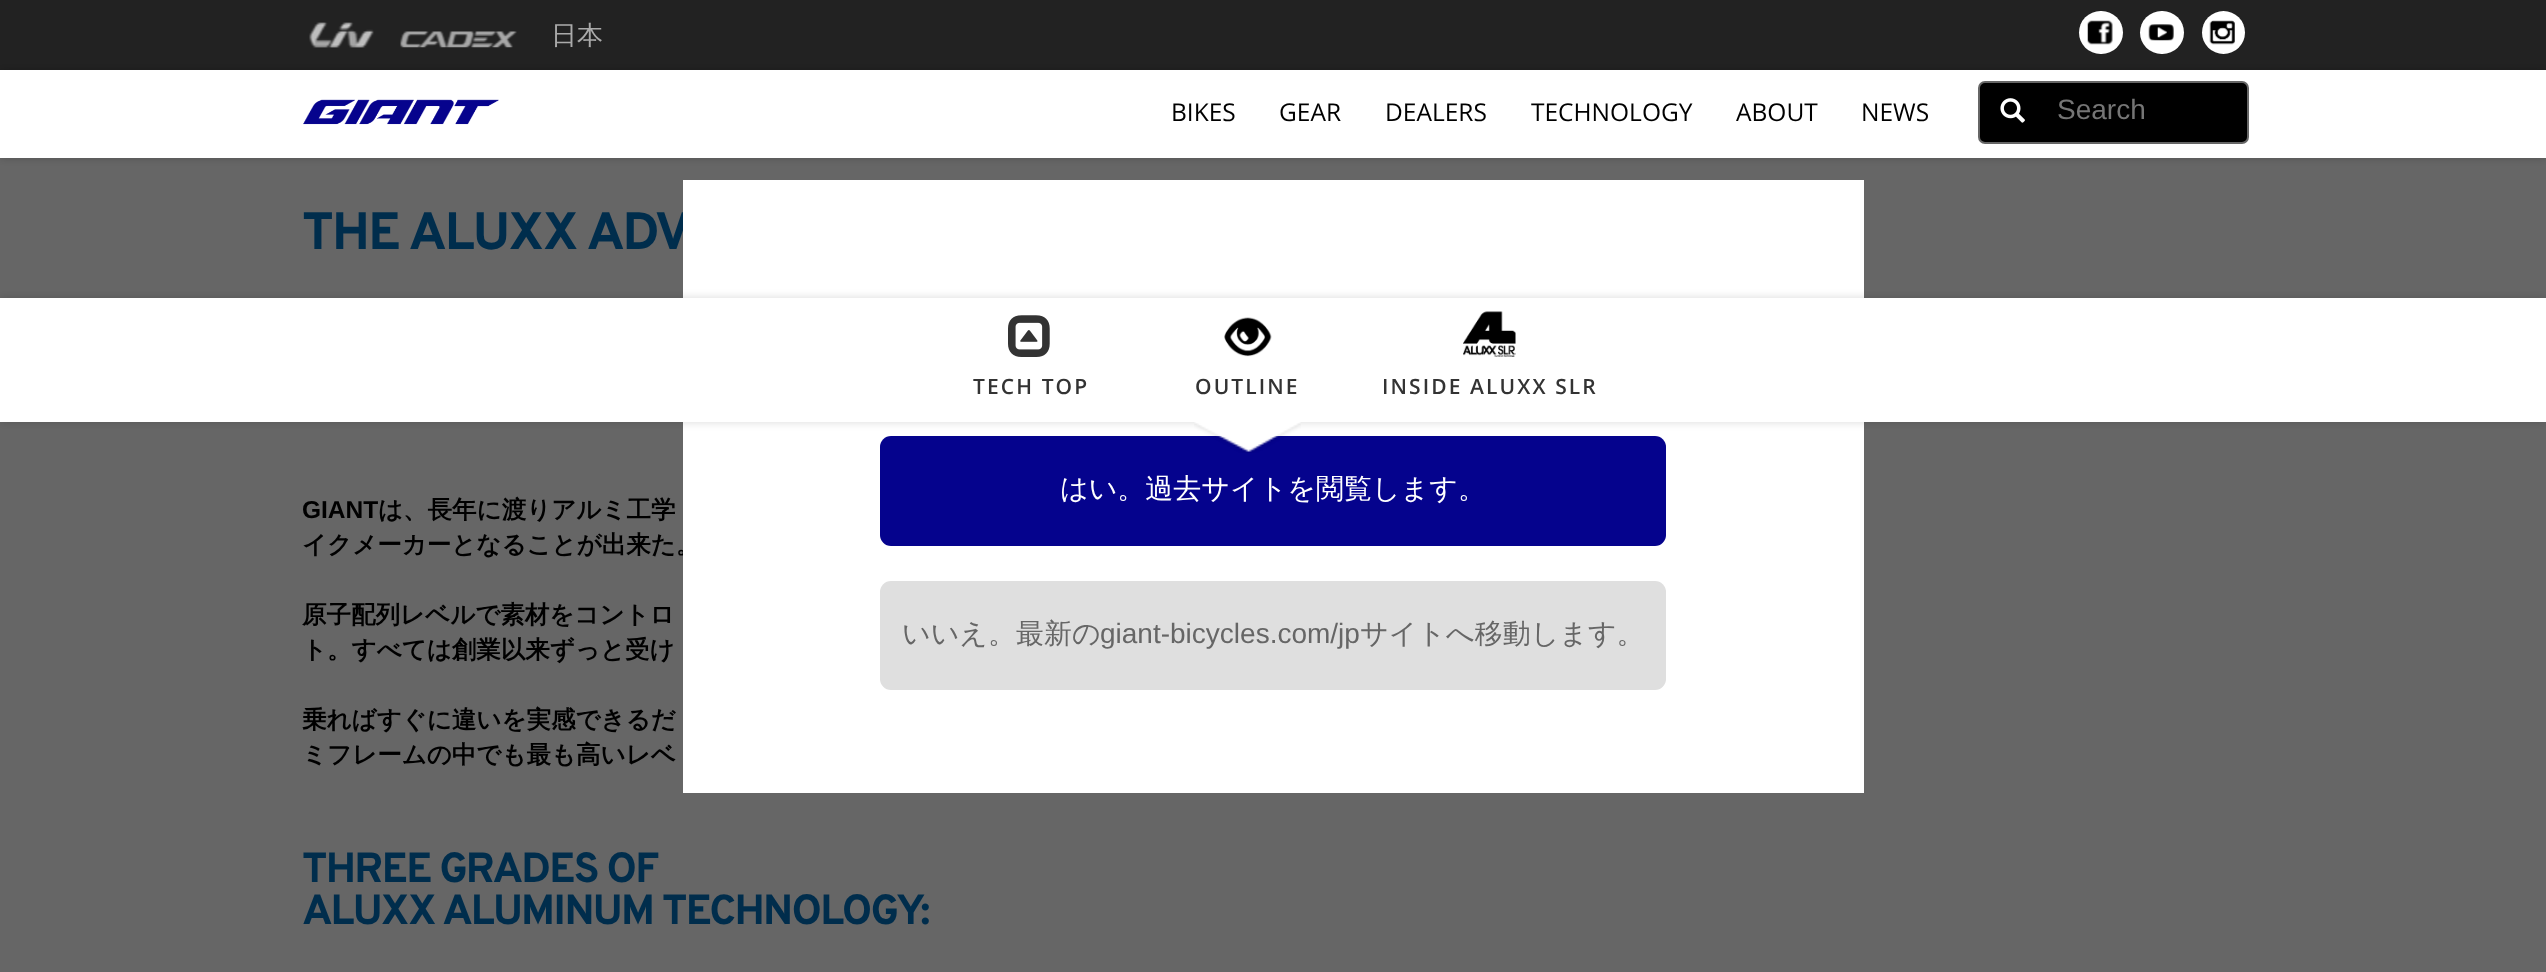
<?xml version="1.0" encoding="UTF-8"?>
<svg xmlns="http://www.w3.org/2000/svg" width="2546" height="972">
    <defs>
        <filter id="blur1" x="-50%" y="-200%" width="200%" height="500%"><feGaussianBlur stdDeviation="4.5"/></filter>
    </defs>
    <rect width="100%" height="100%" fill="#666666"/>
    <rect x="0" y="0" width="2546" height="70" fill="#222222"/>
    <image x="309" y="22" width="65" height="26" href="img_01.png"/>
    <image x="400" y="31" width="117" height="17" href="img_02.png"/>
    <text x="551" y="44" font-family="WenQuanYi Zen Hei" font-size="26" font-weight="500" fill="#AAAAAA">日本</text>
    <rect x="2079" y="11" width="44" height="43" rx="21.5" fill="#FFFFFF"/>
    <image x="2087" y="20" width="26" height="25" href="img_03.png"/>
    <rect x="2140" y="11" width="44" height="43" rx="21.5" fill="#FFFFFF"/>
    <image x="2148" y="24" width="26" height="17" href="img_04.png"/>
    <circle cx="2223.5" cy="32.5" r="21.5" fill="#FFFFFF"/>
    <image x="2209" y="20" width="26" height="25" href="img_05.png"/>
    <rect x="0" y="70" width="2546" height="88" fill="#000000" fill-opacity="0.2" filter="url(#blur1)"/>
    <rect x="0" y="70" width="2546" height="88" fill="#FFFFFF"/>
    <image x="303" y="99" width="196" height="26" href="img_06.png"/>
    <text x="1171" y="121" font-family="Open Sans" font-size="24.5" fill="#000000">BIKES</text>
    <text x="1279" y="121" font-family="Open Sans" font-size="24.5" fill="#000000">GEAR</text>
    <text x="1385" y="121" font-family="Open Sans" font-size="24.5" fill="#000000">DEALERS</text>
    <text x="1531" y="121" font-family="Open Sans" font-size="24.5" fill="#000000">TECHNOLOGY</text>
    <text x="1736" y="121" font-family="Open Sans" font-size="24.5" fill="#000000">ABOUT</text>
    <text x="1861" y="121" font-family="Open Sans" font-size="24.5" fill="#000000">NEWS</text>
    <rect x="1979" y="82" width="269" height="61" rx="6" fill="#000000" stroke="#666666" stroke-width="2"/>
    <image x="2000" y="98" width="25" height="25" href="img_07.png"/>
    <text x="2057" y="119" font-family="Liberation Sans" font-size="28" fill="#757575">Search</text>
    <text x="302" y="249" font-family="Overpass" font-size="52.5" font-weight="800" letter-spacing="-1.75" fill="#002D4C">THE ALUXX ADV</text>
    <text x="302" y="553" font-family="WenQuanYi Zen Hei" font-size="24.5" font-weight="700" fill="#000000">イクメーカーとなることが出来た。</text>
    <rect x="683" y="180" width="1181" height="613" fill="#FFFFFF"/>
    <rect x="880" y="436" width="786" height="110" rx="11" fill="#05038D"/>
    <rect x="0" y="298" width="2546" height="124" fill="#000000" fill-opacity="0.15" filter="url(#blur1)"/>
    <rect x="0" y="298" width="2546" height="124" fill="#FFFFFF"/>
    <image x="1008" y="315" width="42" height="42" href="img_08.png"/>
    <text x="973" y="394" font-family="Open Sans" font-size="21" font-weight="600" letter-spacing="2.1" fill="#333333">TECH TOP</text>
    <image x="1224" y="317" width="48" height="40" href="img_09.png"/>
    <text x="1195" y="394" font-family="Open Sans" font-size="21" font-weight="600" letter-spacing="2.1" fill="#333333">OUTLINE</text>
    <image x="1194" y="422" width="107" height="31" href="img_10.png"/>
    <image x="1463" y="311" width="53" height="46" href="img_11.png"/>
    <text x="1382" y="394" font-family="Open Sans" font-size="21" font-weight="600" letter-spacing="2.1" fill="#333333">INSIDE ALUXX SLR</text>
    <text x="302" y="518" font-family="Liberation Sans" font-size="24.5" font-weight="700" fill="#000000">GIANT</text>
    <text x="378" y="518" font-family="WenQuanYi Zen Hei" font-size="24.5" font-weight="700" fill="#000000">は、長年に渡りアルミ工学</text>
    <text font-family="WenQuanYi Zen Hei" font-size="24.5" font-weight="700" fill="#000000">
        <tspan x="302" y="623">原子配列レベルで素材をコントロ</tspan>
        <tspan x="302" y="658">ト。すべては創業以来ずっと受け</tspan>
    </text>
    <text font-family="WenQuanYi Zen Hei" font-size="24.5" font-weight="700" fill="#000000">
        <tspan x="302" y="728">乗ればすぐに違いを実感できるだ</tspan>
        <tspan x="302" y="763">ミフレームの中でも最も高いレベ</tspan>
    </text>
    <text font-family="Overpass" font-size="42" font-weight="800" letter-spacing="-1.75" fill="#002D4C">
        <tspan x="302" y="882">THREE GRADES OF</tspan>
        <tspan x="302" y="924">ALUXX ALUMINUM TECHNOLOGY:</tspan>
    </text>
    <text x="1060" y="498" font-family="WenQuanYi Zen Hei" font-size="28" font-weight="500" fill="#FFFFFF">はい。過去サイトを閲覧します。</text>
    <rect x="880" y="581" width="786" height="109" rx="11" fill="#DFDFDF"/>
    <text x="902" y="643" font-family="WenQuanYi Zen Hei" font-size="28" font-weight="500" fill="#666666">いいえ。最新の</text>
    <text x="1100" y="643" font-family="Liberation Sans" font-size="28" fill="#666666">giant-bicycles.com/jp</text>
    <text x="1360" y="643" font-family="WenQuanYi Zen Hei" font-size="28" font-weight="500" fill="#666666">サイトへ移動します。</text>
</svg>
